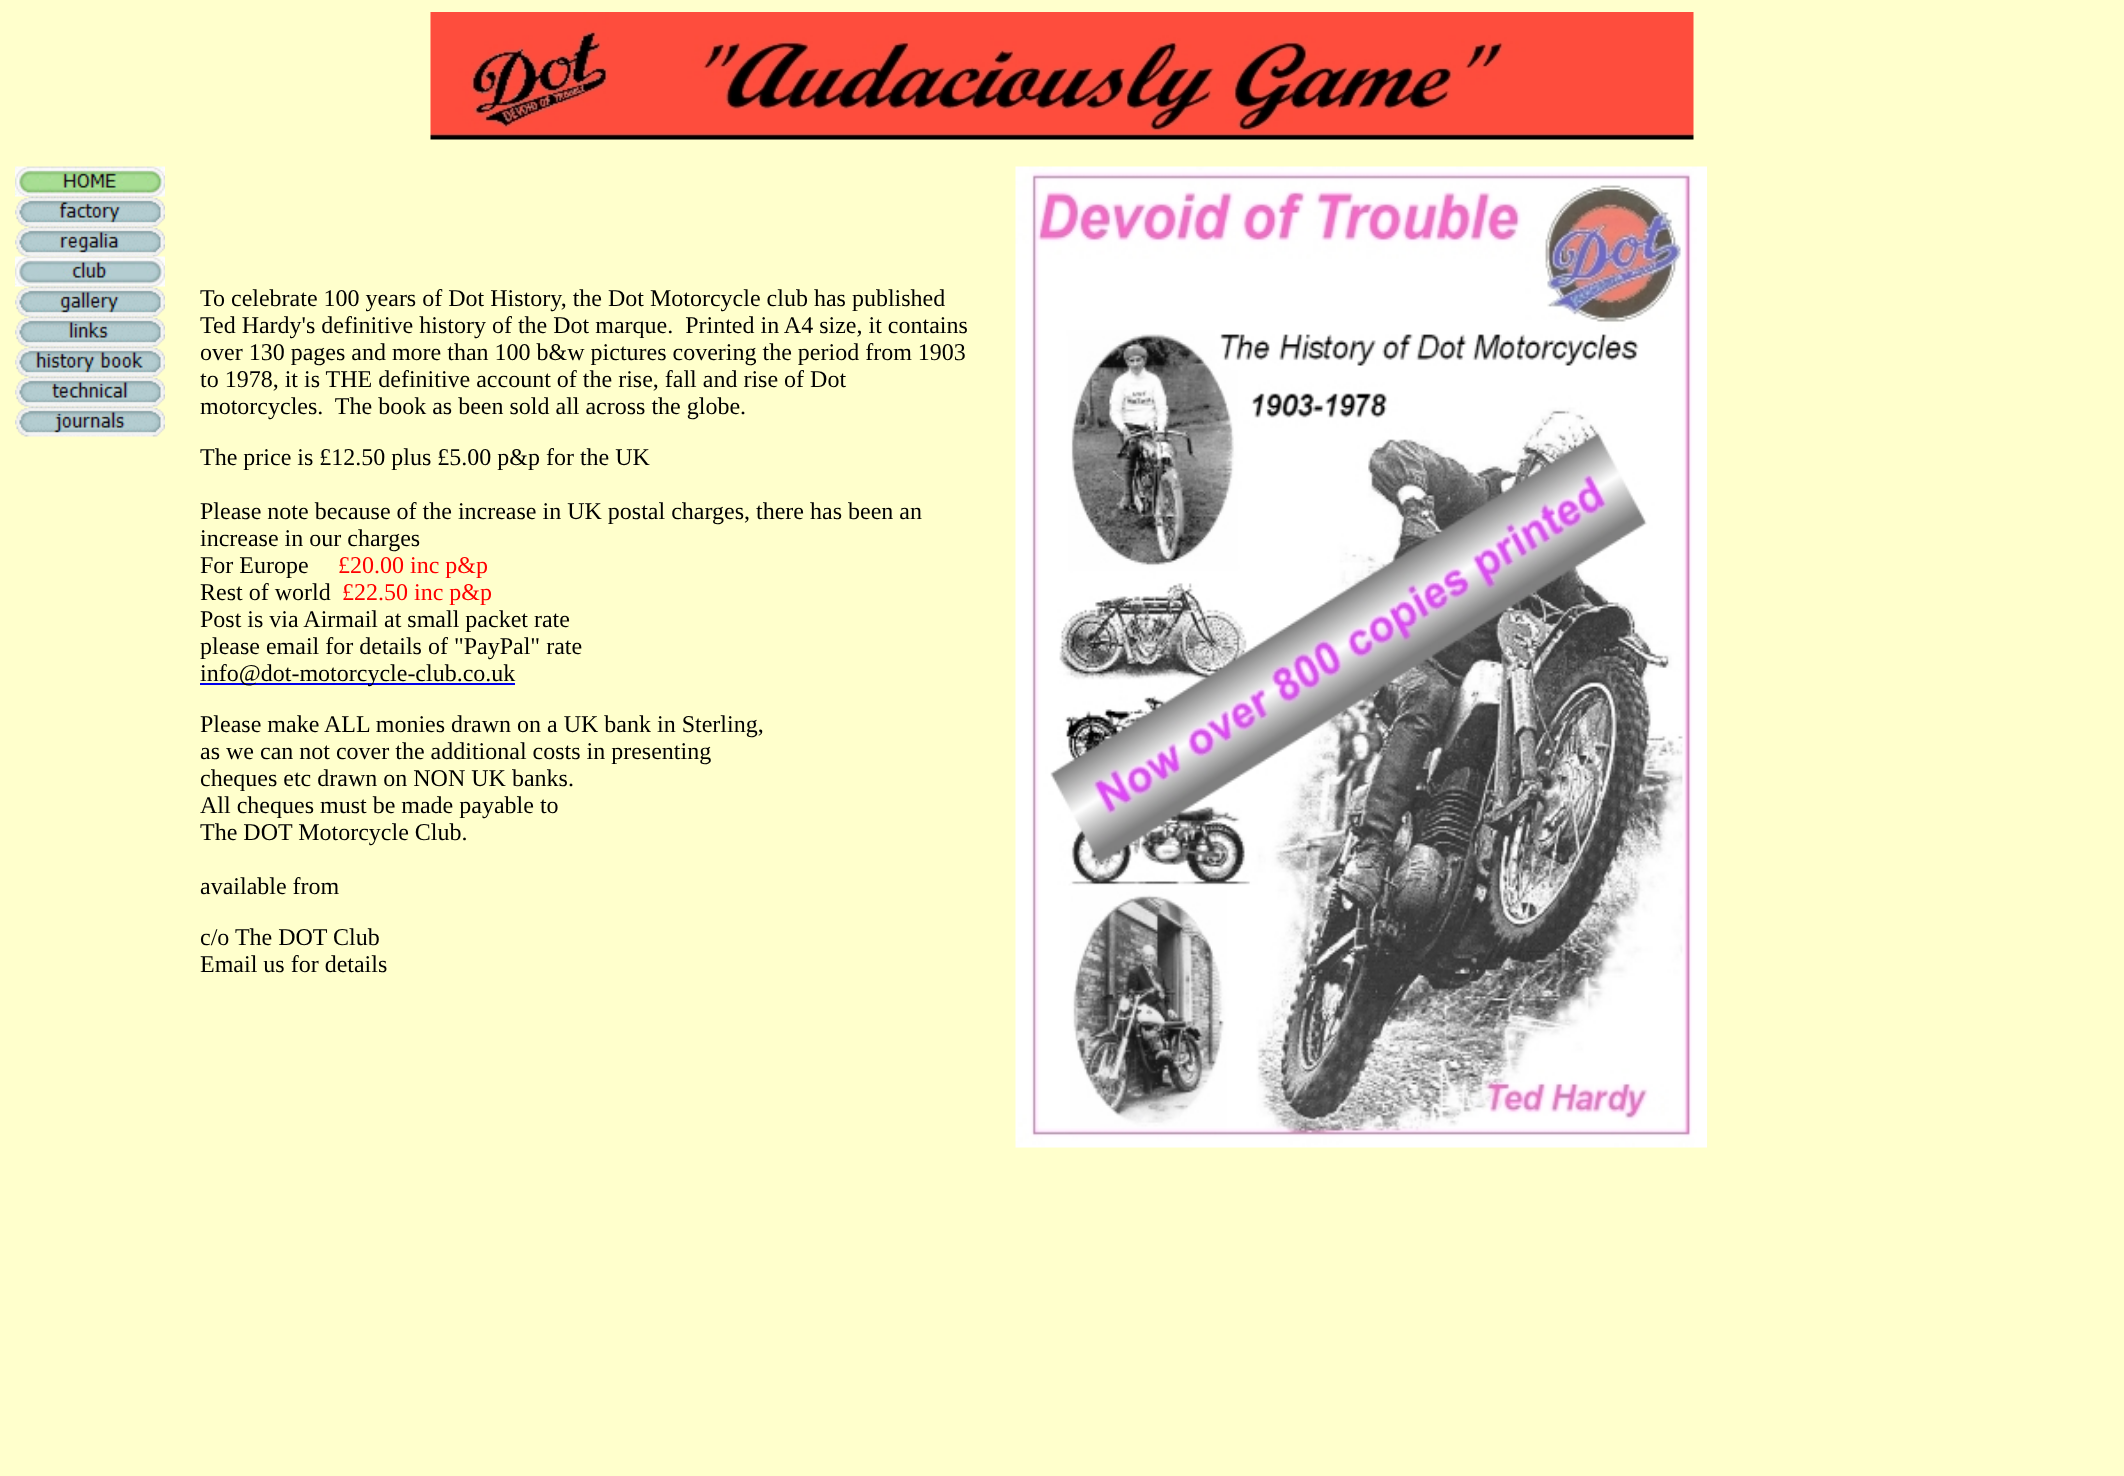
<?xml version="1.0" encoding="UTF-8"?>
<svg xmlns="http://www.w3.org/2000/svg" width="2124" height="1476">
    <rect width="100%" height="100%" fill="#FFFFCC"/>
    <image x="430" y="12" width="1264" height="128" href="img_01.png"/>
    <image x="15" y="166" width="150" height="31" href="img_02.png"/>
    <image x="15" y="196" width="150" height="31" href="img_03.png"/>
    <image x="15" y="226" width="150" height="31" href="img_04.png"/>
    <image x="15" y="256" width="150" height="31" href="img_05.png"/>
    <image x="15" y="286" width="150" height="31" href="img_06.png"/>
    <image x="15" y="316" width="150" height="31" href="img_07.png"/>
    <image x="15" y="346" width="150" height="31" href="img_08.png"/>
    <image x="15" y="376" width="150" height="31" href="img_09.png"/>
    <image x="15" y="406" width="150" height="31" href="img_10.png"/>
    <text font-family="Liberation Serif" font-size="24" fill="#000000" xml:space="preserve"><tspan x="200" y="306">To celebrate 100 years of Dot History, the Dot Motorcycle club has published</tspan><tspan x="200" y="333">Ted Hardy's definitive history of the Dot marque.  Printed in A4 size, it contains</tspan><tspan x="200" y="360">over 130 pages and more than 100 b&amp;w pictures covering the period from 1903</tspan><tspan x="200" y="387">to 1978, it is THE definitive account of the rise, fall and rise of Dot</tspan><tspan x="200" y="414">motorcycles.  The book as been sold all across the globe.</tspan></text>
    <text x="200" y="465" font-family="Liberation Serif" font-size="24" fill="#000000">The price is £12.50 plus £5.00 p&amp;p for the UK</text>
    <text font-family="Liberation Serif" font-size="24" fill="#000000">
        <tspan x="200" y="519">Please note because of the increase in UK postal charges, there has been an</tspan>
        <tspan x="200" y="546">increase in our charges</tspan>
        <tspan x="200" y="573">For Europe</tspan>
    </text>
    <text x="338" y="573" font-family="Liberation Serif" font-size="24" fill="#FF0000">£20.00 inc p&amp;p</text>
    <text x="200" y="600" font-family="Liberation Serif" font-size="24" fill="#000000">Rest of world</text>
    <text x="342" y="600" font-family="Liberation Serif" font-size="24" fill="#FF0000">£22.50 inc p&amp;p</text>
    <text font-family="Liberation Serif" font-size="24" fill="#000000">
        <tspan x="200" y="627">Post is via Airmail at small packet rate</tspan>
        <tspan x="200" y="654">please email for details of "PayPal" rate</tspan>
    </text>
    <rect x="200" y="683" width="315" height="2" fill="#0000EE"/>
    <text x="200" y="681" font-family="Liberation Serif" font-size="24" fill="#000000">info@dot-motorcycle-club.co.uk</text>
    <text font-family="Liberation Serif" font-size="24" fill="#000000">
        <tspan x="200" y="732">Please make ALL monies drawn on a UK bank in Sterling,</tspan>
        <tspan x="200" y="759">as we can not cover the additional costs in presenting</tspan>
        <tspan x="200" y="786">cheques etc drawn on NON UK banks.</tspan>
        <tspan x="200" y="813">All cheques must be made payable to</tspan>
        <tspan x="200" y="840">The DOT Motorcycle Club.</tspan>
    </text>
    <text x="200" y="894" font-family="Liberation Serif" font-size="24" fill="#000000">available from</text>
    <text font-family="Liberation Serif" font-size="24" fill="#000000">
        <tspan x="200" y="945">c/o The DOT Club</tspan>
        <tspan x="200" y="972">Email us for details</tspan>
    </text>
    <image x="1015" y="166" width="692" height="982" href="img_11.png"/>
</svg>
